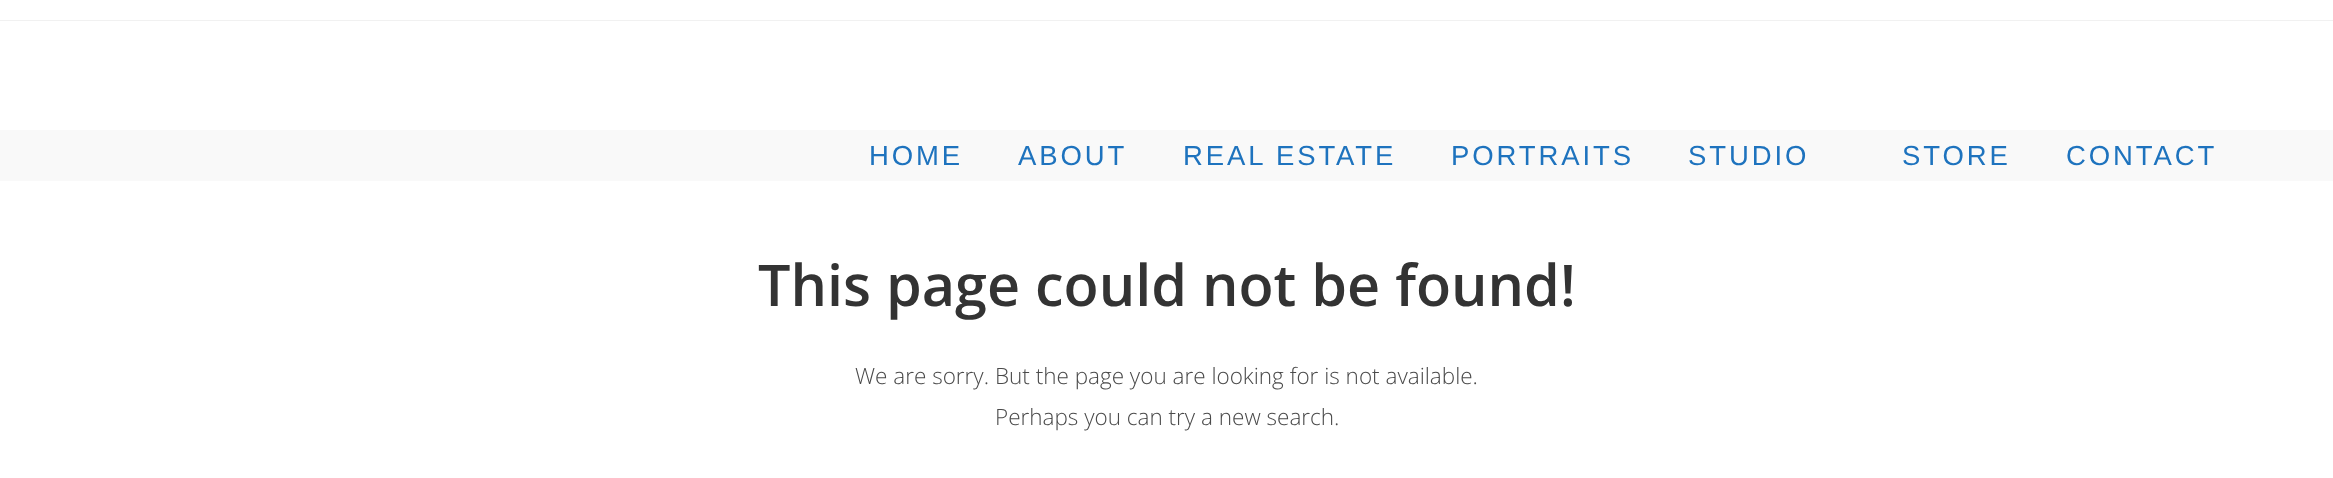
<?xml version="1.0" encoding="UTF-8"?>
<svg xmlns="http://www.w3.org/2000/svg" width="2333" height="478">
    <rect width="100%" height="100%" fill="#FFFFFF"/>
    <rect x="0" y="20" width="2333" height="1" fill="#F1F1F1"/>
    <rect x="0" y="130" width="2333" height="51" fill="#F9F9F9"/>
    <text x="869" y="165" font-family="Liberation Sans" font-size="27.5" letter-spacing="2.9" fill="#1E73BE">HOME</text>
    <text x="1018" y="165" font-family="Liberation Sans" font-size="27.5" letter-spacing="2.9" fill="#1E73BE">ABOUT</text>
    <text x="1183" y="165" font-family="Liberation Sans" font-size="27.5" letter-spacing="2.9" fill="#1E73BE">REAL ESTATE</text>
    <text x="1451" y="165" font-family="Liberation Sans" font-size="27.5" letter-spacing="2.9" fill="#1E73BE">PORTRAITS</text>
    <text x="1688" y="165" font-family="Liberation Sans" font-size="27.5" letter-spacing="2.9" fill="#1E73BE">STUDIO</text>
    <text x="1902" y="165" font-family="Liberation Sans" font-size="27.5" letter-spacing="2.9" fill="#1E73BE">STORE</text>
    <text x="2066" y="165" font-family="Liberation Sans" font-size="27.5" letter-spacing="2.9" fill="#1E73BE">CONTACT</text>
    <text x="758" y="306" font-family="Open Sans" font-size="57.5" font-weight="600" fill="#333333">This page could not be found!</text>
    <text x="855" y="384" font-family="Open Sans" font-size="22.5" font-weight="300" fill="#4A4A4A">We are sorry. But the page you are looking for is not available.</text>
    <text x="995" y="425" font-family="Open Sans" font-size="22.5" font-weight="300" fill="#4A4A4A">Perhaps you can try a new search.</text>
</svg>
